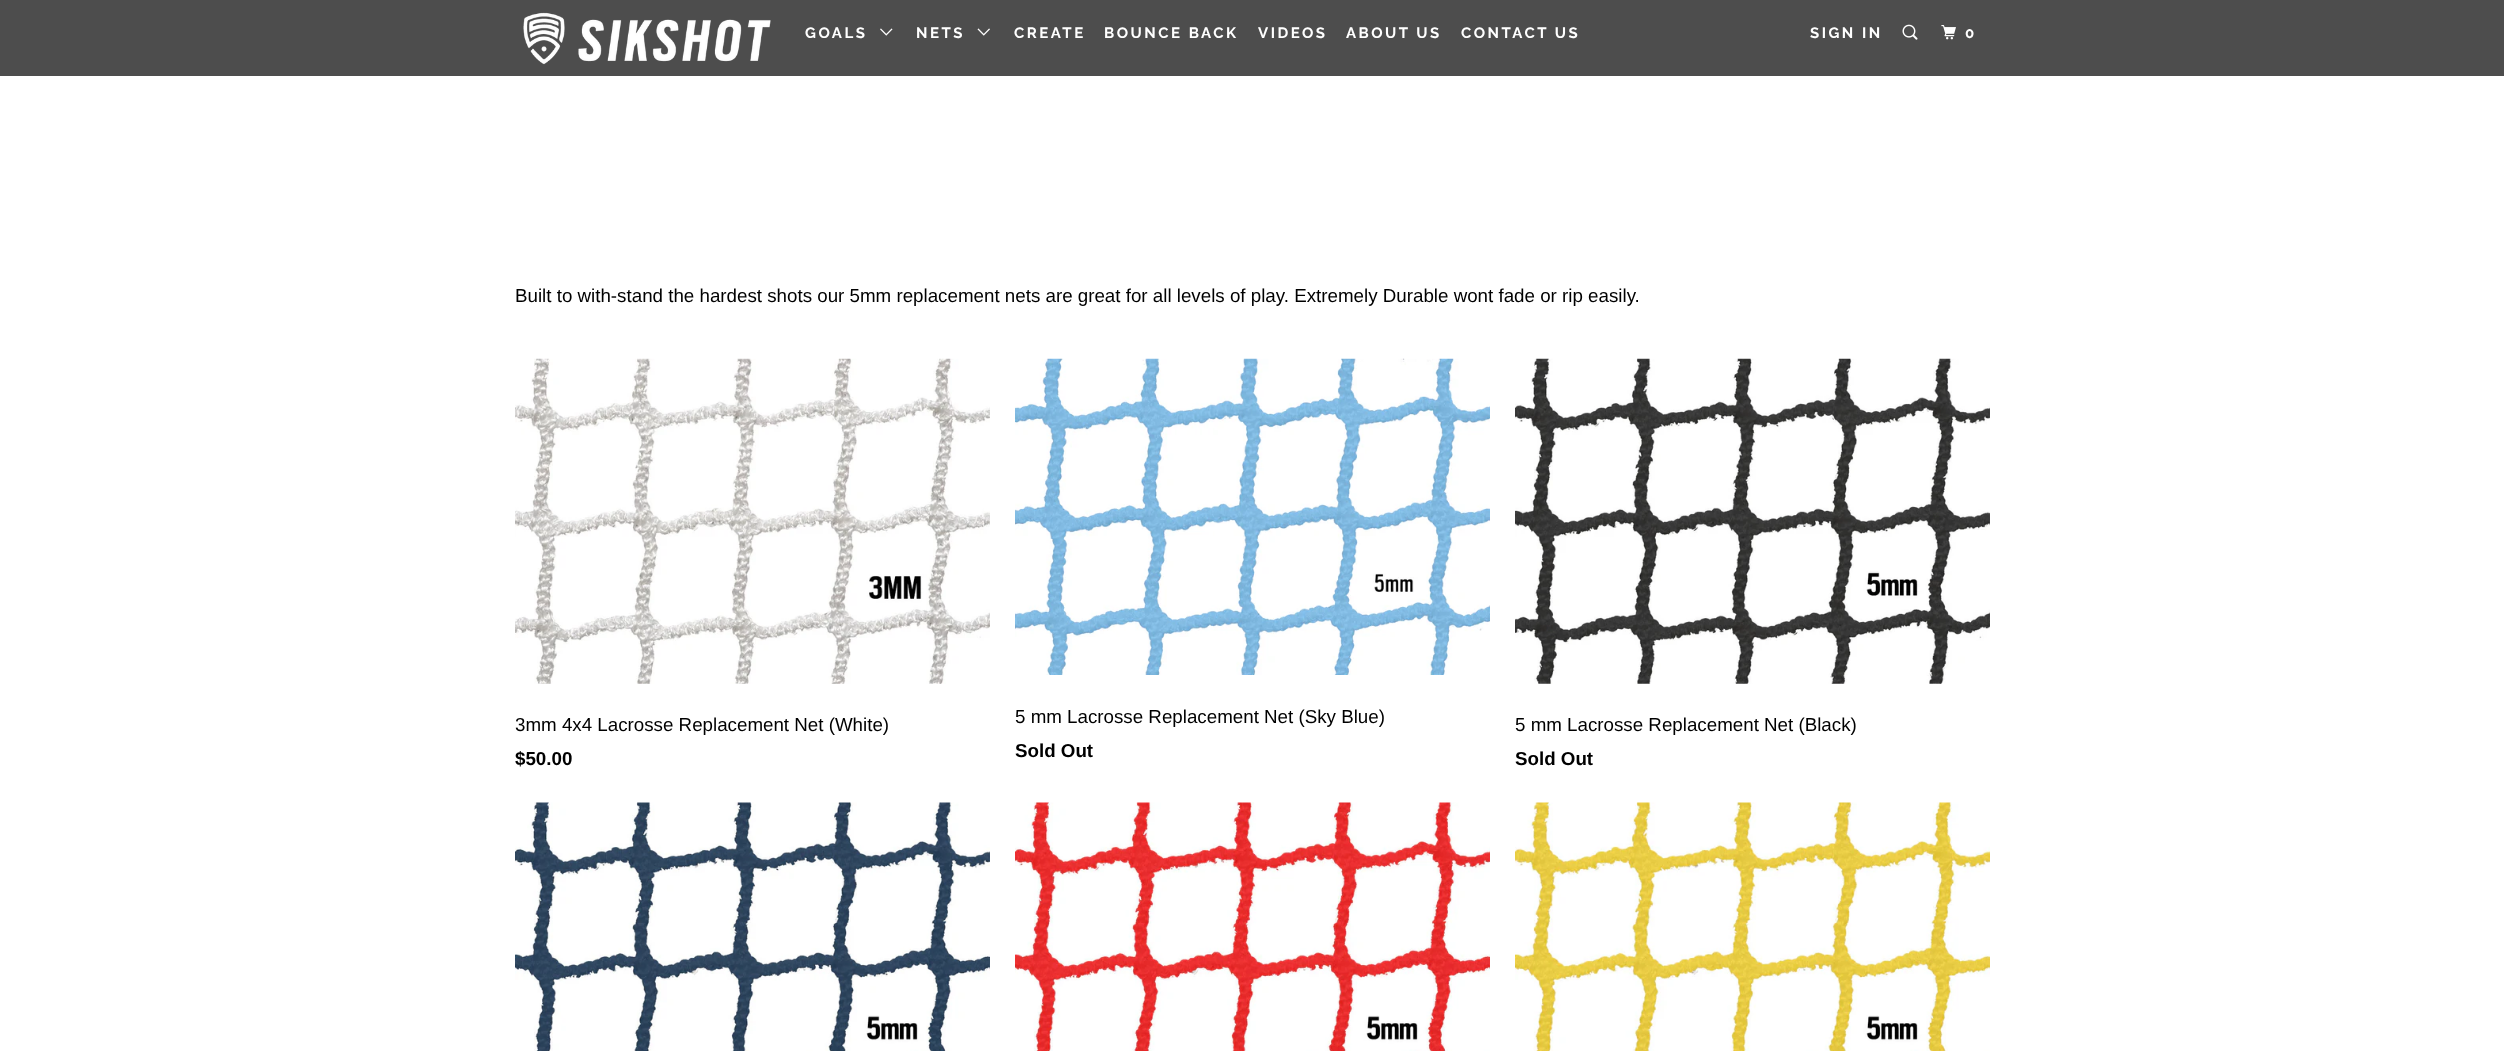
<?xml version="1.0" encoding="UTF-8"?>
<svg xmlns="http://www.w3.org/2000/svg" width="2504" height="1051">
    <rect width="100%" height="100%" fill="#FFFFFF"/>
    <rect x="0" y="0" width="2504" height="76" fill="#4D4D4D"/>
    <image x="523" y="12" width="248" height="53" href="img_01.png"/>
    <text x="805" y="38" font-family="Raleway" font-size="15" font-weight="700" letter-spacing="2.5" fill="#FFFFFF">GOALS</text>
    <image x="880" y="28" width="13" height="8" href="img_02.png"/>
    <text x="916" y="38" font-family="Raleway" font-size="15" font-weight="700" letter-spacing="2.5" fill="#FFFFFF">NETS</text>
    <image x="977" y="28" width="13" height="8" href="img_03.png"/>
    <text x="1014" y="38" font-family="Raleway" font-size="15" font-weight="700" letter-spacing="2.5" fill="#FFFFFF">CREATE</text>
    <text x="1104" y="38" font-family="Raleway" font-size="15" font-weight="700" letter-spacing="2.5" fill="#FFFFFF">BOUNCE BACK</text>
    <text x="1258" y="38" font-family="Raleway" font-size="15" font-weight="700" letter-spacing="2.5" fill="#FFFFFF">VIDEOS</text>
    <text x="1346" y="38" font-family="Raleway" font-size="15" font-weight="700" letter-spacing="2.5" fill="#FFFFFF">ABOUT US</text>
    <text x="1461" y="38" font-family="Raleway" font-size="15" font-weight="700" letter-spacing="2.5" fill="#FFFFFF">CONTACT US</text>
    <text x="1810" y="38" font-family="Raleway" font-size="15" font-weight="700" letter-spacing="2.5" fill="#FFFFFF">SIGN IN</text>
    <image x="1902" y="24" width="16" height="16" href="img_04.png"/>
    <image x="1941" y="25" width="15" height="15" href="img_05.png"/>
    <text x="1965" y="38" font-family="Raleway" font-size="15" font-weight="700" letter-spacing="2.5" fill="#FFFFFF">0</text>
    <text x="515" y="302" font-family="Liberation Sans" font-size="18.75" fill="#000000">Built to with-stand the hardest shots our 5mm replacement nets are great for all levels of play. Extremely Durable wont fade or rip easily.</text>
    <image x="515" y="358" width="475" height="326" href="img_06.png"/>
    <text x="515" y="731" font-family="Liberation Sans" font-size="18.75" fill="#000000">3mm 4x4 Lacrosse Replacement Net (White)</text>
    <text x="515" y="765" font-family="Liberation Sans" font-size="18.75" font-weight="700" fill="#000000">$50.00</text>
    <image x="1015" y="358" width="475" height="317" href="img_07.png"/>
    <text x="1015" y="723" font-family="Liberation Sans" font-size="18.75" fill="#000000">5 mm Lacrosse Replacement Net (Sky Blue)</text>
    <text x="1015" y="757" font-family="Liberation Sans" font-size="18.75" font-weight="700" fill="#000000">Sold Out</text>
    <image x="1515" y="358" width="475" height="326" href="img_08.png"/>
    <text x="1515" y="731" font-family="Liberation Sans" font-size="18.75" fill="#000000">5 mm Lacrosse Replacement Net (Black)</text>
    <text x="1515" y="765" font-family="Liberation Sans" font-size="18.75" font-weight="700" fill="#000000">Sold Out</text>
    <image x="515" y="802" width="475" height="249" href="img_09.png"/>
    <image x="1015" y="802" width="475" height="249" href="img_10.png"/>
    <image x="1515" y="802" width="475" height="249" href="img_11.png"/>
</svg>
